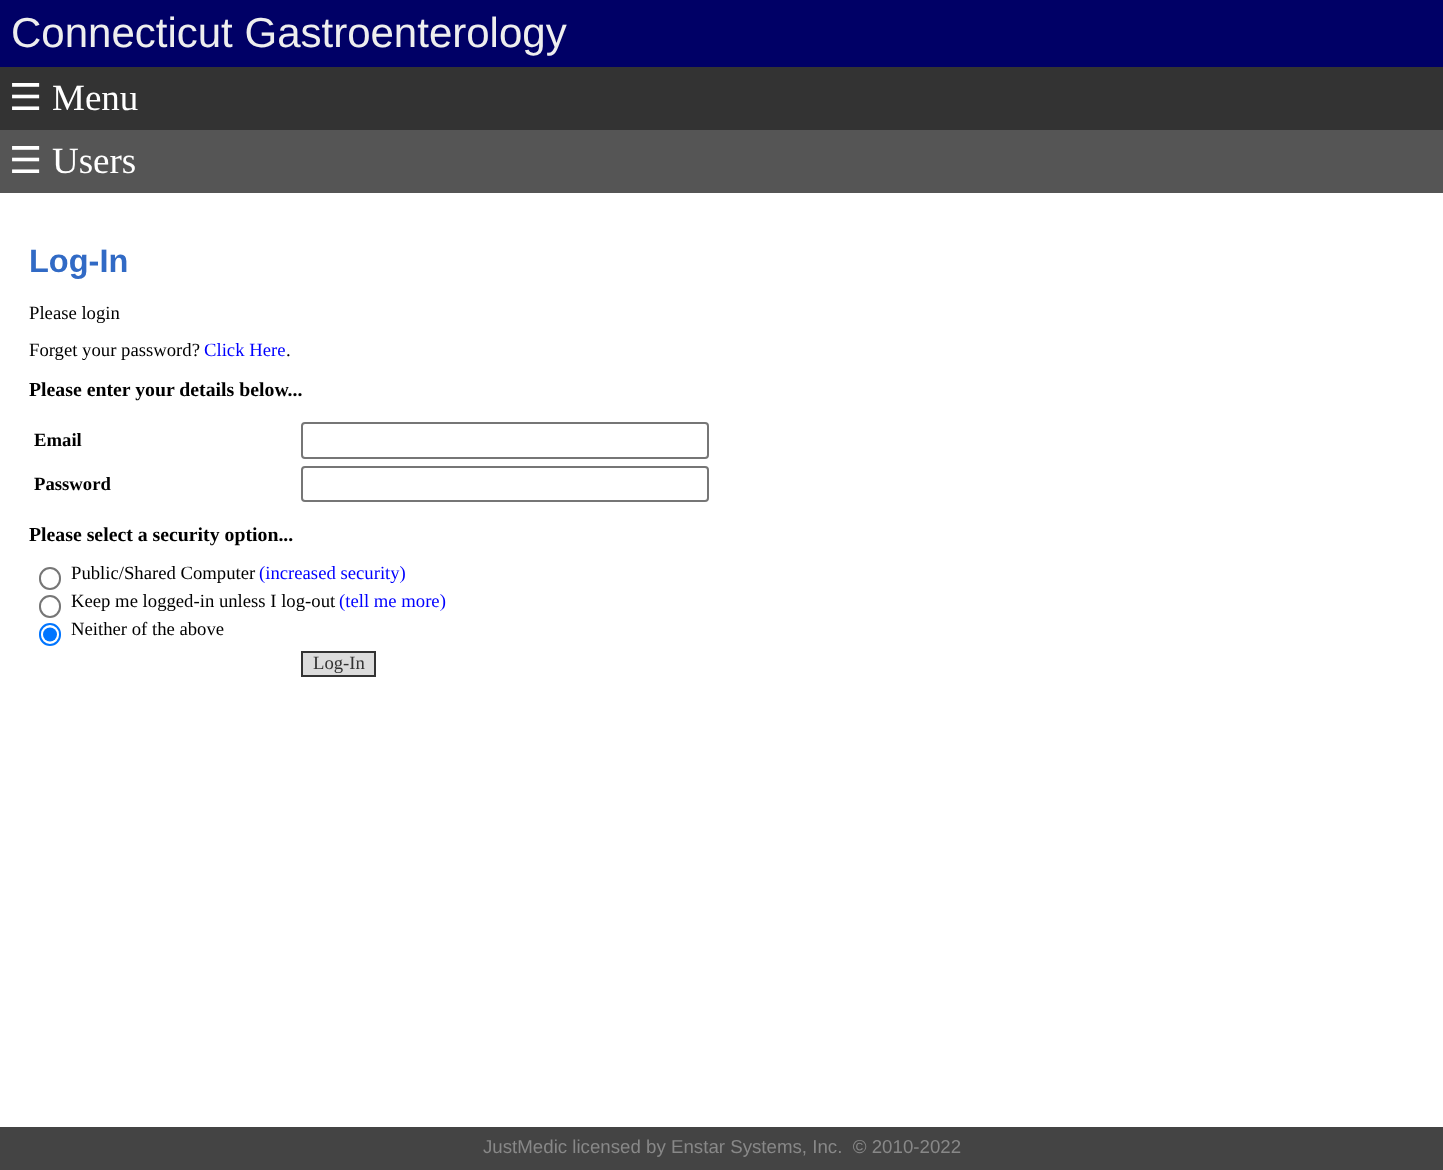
<?xml version="1.0" encoding="UTF-8"?>
<svg xmlns="http://www.w3.org/2000/svg" width="1443" height="1170">
    <rect width="100%" height="100%" fill="#FFFFFF"/>
    <rect x="0" y="0" width="1443" height="67" fill="#000066"/>
    <text x="11" y="47" font-family="Liberation Sans" font-size="42" fill="#EEEEEE">Connecticut Gastroenterology</text>
    <rect x="0" y="67" width="1443" height="63" fill="#333333"/>
    <text x="9" y="110" font-family="DejaVu Sans" font-size="37" fill="#FFFFFF">☰</text>
    <text x="52" y="110" font-family="Liberation Serif" font-size="37" fill="#FFFFFF">Menu</text>
    <rect x="0" y="130" width="1443" height="63" fill="#555555"/>
    <text x="9" y="173" font-family="DejaVu Sans" font-size="37" fill="#FFFFFF">☰</text>
    <text x="52" y="173" font-family="Liberation Serif" font-size="37" fill="#FFFFFF">Users</text>
    <text x="29" y="272" font-family="Liberation Sans" font-size="32.5" font-weight="700" fill="#316AC5">Log-In</text>
    <text font-family="Liberation Serif" font-size="18.7" fill="#000000">
        <tspan x="29" y="319">Please login</tspan>
        <tspan x="29" y="356">Forget your password?</tspan>
    </text>
    <text x="204" y="356" font-family="Liberation Serif" font-size="18.7" fill="#0000FF">Click Here</text>
    <text x="286" y="356" font-family="Liberation Serif" font-size="18.7" fill="#000000">.</text>
    <text x="29" y="396" font-family="Liberation Serif" font-size="19.8" font-weight="700" fill="#000000">Please enter your details below...</text>
    <text x="34" y="446" font-family="Liberation Serif" font-size="18.7" font-weight="700" fill="#000000">Email</text>
    <rect x="302" y="423" width="406" height="35" rx="3" fill="none" stroke="#767676" stroke-width="2"/>
    <text x="34" y="490" font-family="Liberation Serif" font-size="18.7" font-weight="700" fill="#000000">Password</text>
    <rect x="302" y="467" width="406" height="34" rx="3" fill="none" stroke="#767676" stroke-width="2"/>
    <text x="29" y="541" font-family="Liberation Serif" font-size="19.8" font-weight="700" fill="#000000">Please select a security option...</text>
    <rect x="40" y="568" width="20" height="21" rx="10" fill="none" stroke="#767676" stroke-width="2"/>
    <text x="71" y="579" font-family="Liberation Serif" font-size="18.7" fill="#000000">Public/Shared Computer</text>
    <text x="259" y="579" font-family="Liberation Serif" font-size="18.7" fill="#0000FF">(increased security)</text>
    <rect x="40" y="596" width="20" height="21" rx="10" fill="none" stroke="#767676" stroke-width="2"/>
    <text x="71" y="607" font-family="Liberation Serif" font-size="18.7" fill="#000000">Keep me logged-in unless I log-out</text>
    <text x="339" y="607" font-family="Liberation Serif" font-size="18.7" fill="#0000FF">(tell me more)</text>
    <rect x="40" y="624" width="20" height="21" rx="10" fill="none" stroke="#0075FF" stroke-width="2"/>
    <circle cx="50" cy="634.5" r="7" fill="#0075FF"/>
    <text x="71" y="635" font-family="Liberation Serif" font-size="18.7" fill="#000000">Neither of the above</text>
    <rect x="302" y="652" width="73" height="24" fill="#DCDCDC" stroke="#333333" stroke-width="2"/>
    <text x="313" y="669" font-family="Liberation Serif" font-size="18.7" fill="#333333">Log-In</text>
    <rect x="0" y="1127" width="1443" height="43" fill="#444444"/>
    <text x="483" y="1153" font-family="Liberation Sans" font-size="18.7" fill="#888888" xml:space="preserve">JustMedic licensed by Enstar Systems, Inc.  © 2010-2022</text>
</svg>
